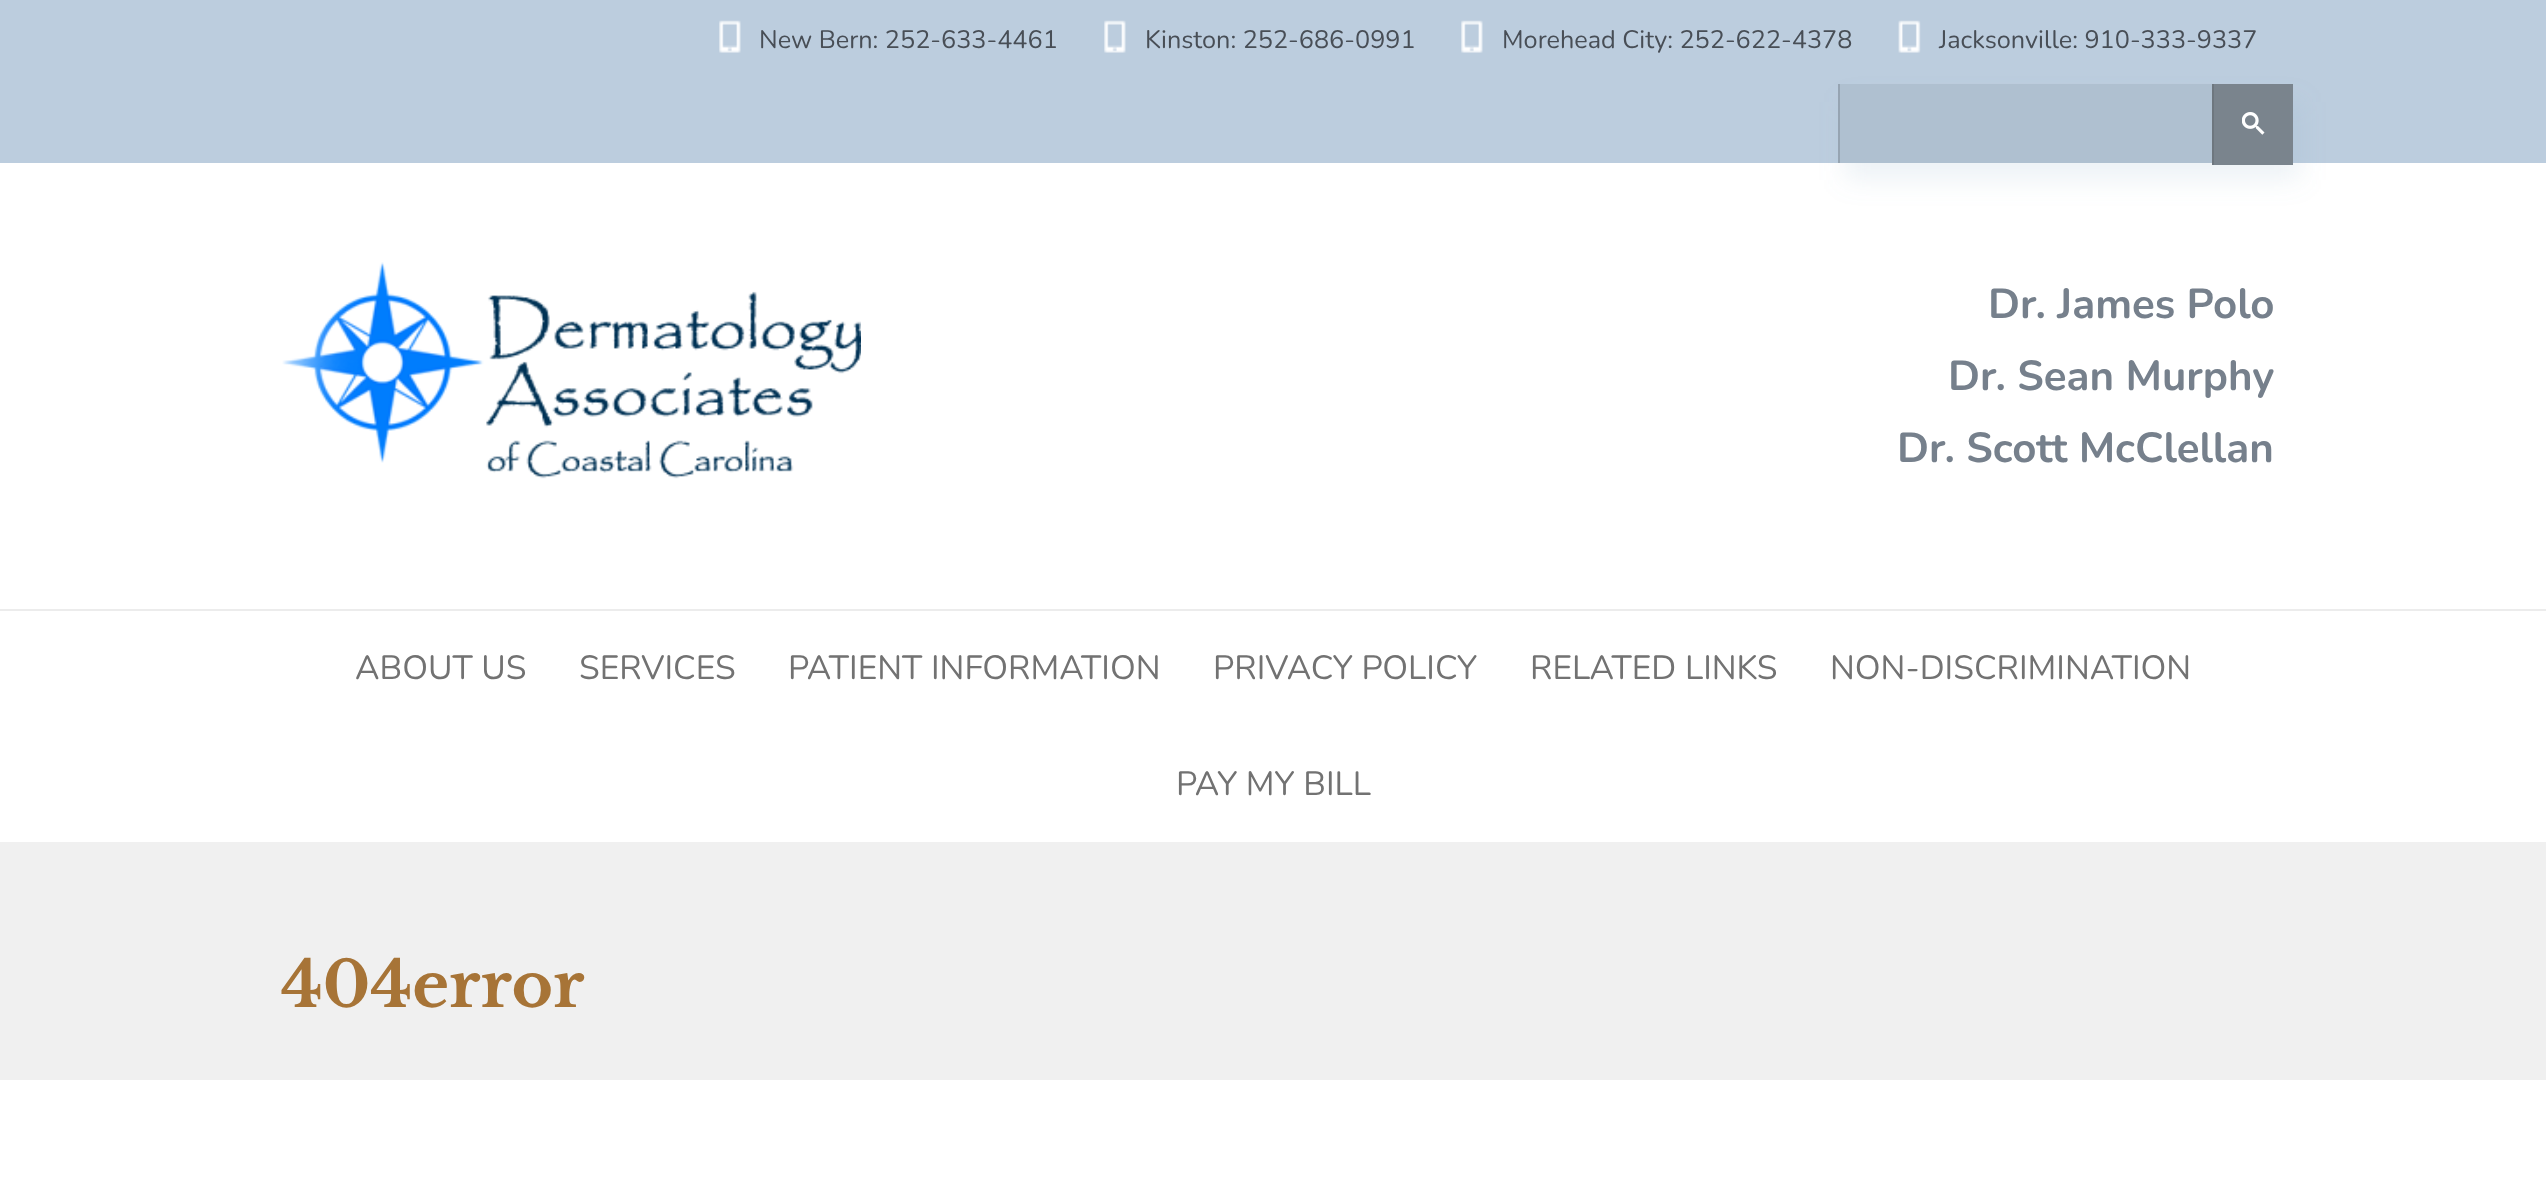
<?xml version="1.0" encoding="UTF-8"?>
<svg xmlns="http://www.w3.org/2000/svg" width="2546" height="1181">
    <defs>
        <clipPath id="clip1"><path d="M 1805 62 H 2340 V 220 H 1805 Z M 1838 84 H 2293 V 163 H 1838 Z" clip-rule="evenodd"/></clipPath>
        <filter id="blur1" x="-50%" y="-200%" width="200%" height="500%"><feGaussianBlur stdDeviation="13"/></filter>
    </defs>
    <rect width="100%" height="100%" fill="#FFFFFF"/>
    <rect x="0" y="0" width="2546" height="163" fill="#BCCDDE"/>
    <image x="719" y="20" width="22" height="33" href="img_01.png"/>
    <text x="759" y="48" font-family="Nunito" font-size="25.25" fill="#484E56">New Bern: 252-633-4461</text>
    <image x="1104" y="20" width="22" height="33" href="img_01.png"/>
    <text x="1145" y="48" font-family="Nunito" font-size="25.25" fill="#484E56">Kinston: 252-686-0991</text>
    <image x="1461" y="20" width="22" height="33" href="img_01.png"/>
    <text x="1502" y="48" font-family="Nunito" font-size="25.25" fill="#484E56">Morehead City: 252-622-4378</text>
    <image x="1898" y="20" width="23" height="33" href="img_02.png"/>
    <text x="1939" y="48" font-family="Nunito" font-size="25.25" fill="#484E56">Jacksonville: 910-333-9337</text>
    <g clip-path="url(#clip1)">
        <rect x="1845" y="102" width="455" height="78" fill="#89A7C5" fill-opacity="0.15" filter="url(#blur1)"/>
    </g>
    <rect x="1840" y="84" width="372" height="79" fill="#484E56" fill-opacity="0.1"/>
    <rect x="1838" y="84" width="2" height="79" fill="#96A4B2"/>
    <rect x="2214" y="84" width="79" height="81" fill="#7A848D"/>
    <rect x="2212" y="84" width="2" height="81" fill="#6E777F"/>
    <image x="2242" y="112" width="23" height="23" href="img_03.png"/>
    <image x="282" y="262" width="579" height="217" href="img_04.png"/>
    <text x="1988" y="318" font-family="Nunito" font-size="42" font-weight="700" fill="#76808C">Dr. James Polo</text>
    <text x="1948" y="390" font-family="Nunito" font-size="42" font-weight="700" fill="#76808C">Dr. Sean Murphy</text>
    <text x="1897" y="462" font-family="Nunito" font-size="42" font-weight="700" fill="#76808C">Dr. Scott McClellan</text>
    <rect x="0" y="609" width="2546" height="2" fill="#ECECEC"/>
    <text x="355" y="679" font-family="Nunito" font-size="33.6" fill="#727272">ABOUT US</text>
    <text x="579" y="679" font-family="Nunito" font-size="33.6" fill="#727272">SERVICES</text>
    <text x="788" y="679" font-family="Nunito" font-size="33.6" fill="#727272">PATIENT INFORMATION</text>
    <text x="1213" y="679" font-family="Nunito" font-size="33.6" fill="#727272">PRIVACY POLICY</text>
    <text x="1530" y="679" font-family="Nunito" font-size="33.6" fill="#727272">RELATED LINKS</text>
    <text x="1830" y="679" font-family="Nunito" font-size="33.6" fill="#727272">NON-DISCRIMINATION</text>
    <text x="1176" y="795" font-family="Nunito" font-size="33.6" fill="#727272">PAY MY BILL</text>
    <rect x="0" y="842" width="2546" height="238" fill="#F0F0F0"/>
    <text x="281" y="1007" font-family="Libre Baskerville" font-size="63" font-weight="700" fill="#A77437">404error</text>
</svg>
